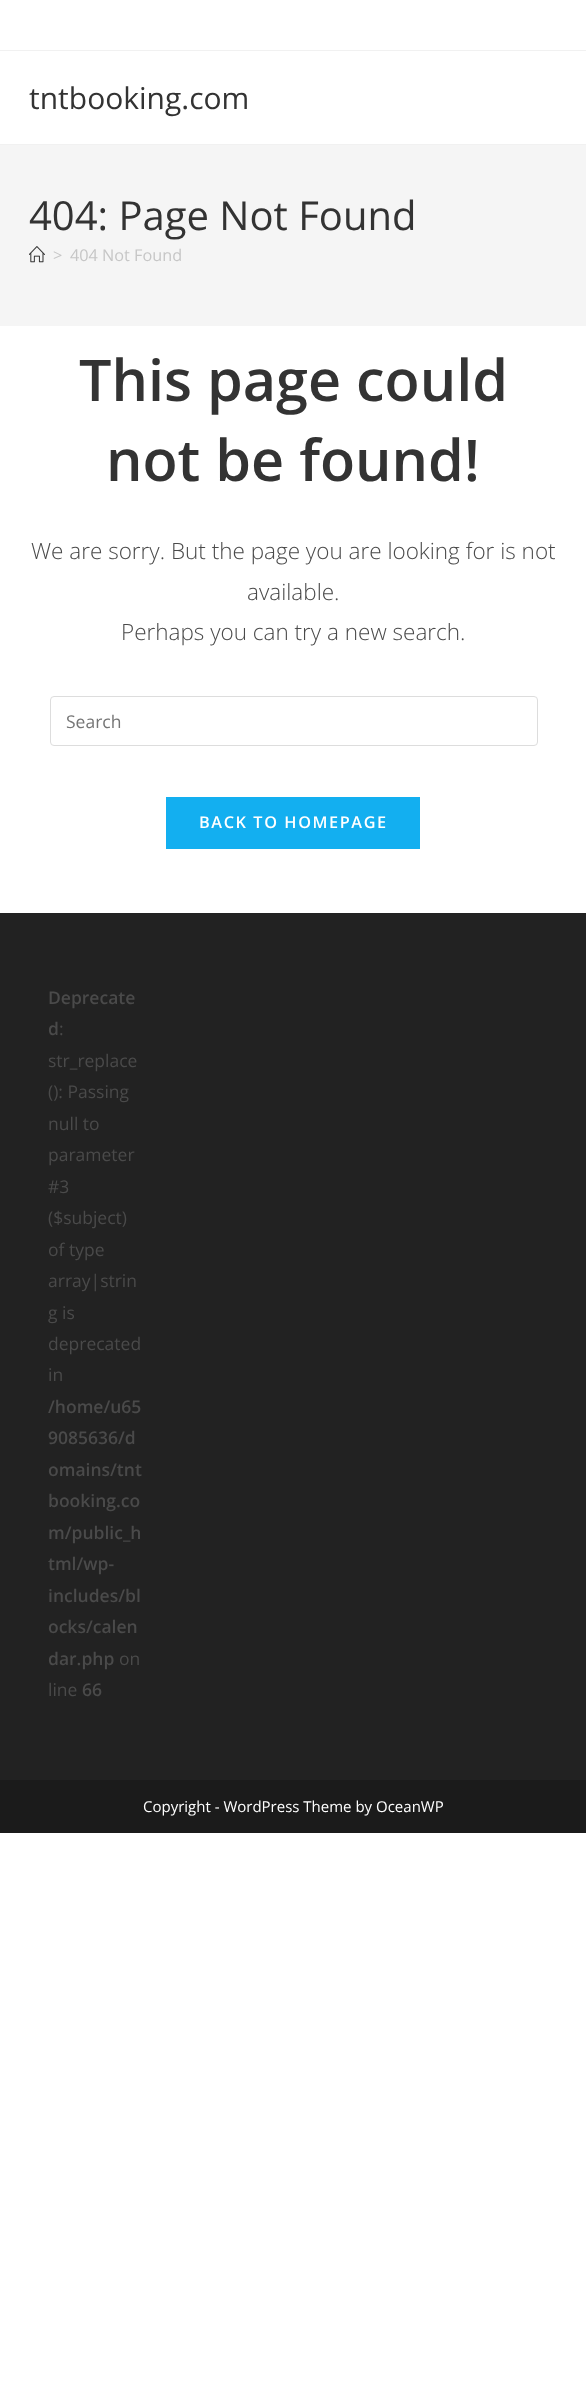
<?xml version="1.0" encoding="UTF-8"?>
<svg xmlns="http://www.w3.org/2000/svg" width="586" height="2385">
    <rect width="100%" height="100%" fill="#FFFFFF"/>
    <rect x="0" y="50" width="586" height="1" fill="#F1F1F1"/>
    <rect x="0" y="144" width="586" height="1" fill="#F1F1F1"/>
    <text x="29" y="109" font-family="Open Sans" font-size="30" fill="#333333">tntbooking.com</text>
    <rect x="0" y="145" width="586" height="181" fill="#F5F5F5"/>
    <text x="29" y="230" font-family="Open Sans" font-size="40" fill="#333333">404: Page Not Found</text>
    <image x="29" y="246" width="16" height="17" href="img_01.png"/>
    <text x="53" y="261" font-family="Open Sans" font-size="16.25" fill="#C6C6C6">&gt;</text>
    <text x="70" y="261" font-family="Open Sans" font-size="16.25" fill="#C6C6C6">404 Not Found</text>
    <text x="79" y="401" font-family="Open Sans" font-size="57.5" font-weight="600" fill="#333333">This page could</text>
    <text x="106" y="481" font-family="Open Sans" font-size="57.5" font-weight="600" fill="#333333">not be found!</text>
    <text x="31" y="559" font-family="Open Sans" font-size="22.5" font-weight="300" fill="#4A4A4A">We are sorry. But the page you are looking for is not</text>
    <text x="247" y="600" font-family="Open Sans" font-size="22.5" font-weight="300" fill="#4A4A4A">available.</text>
    <text x="121" y="640" font-family="Open Sans" font-size="22.5" font-weight="300" fill="#4A4A4A">Perhaps you can try a new search.</text>
    <rect x="50.5" y="696.5" width="487" height="49" rx="3.5" fill="none" stroke="#DDDDDD"/>
    <text x="66" y="728" font-family="Open Sans" font-size="17.5" fill="#757575">Search</text>
    <rect x="166" y="797" width="254" height="52" fill="#13AFF0"/>
    <text x="199" y="828" font-family="Open Sans" font-size="16.25" font-weight="600" letter-spacing="1.6" fill="#FFFFFF">BACK TO HOMEPAGE</text>
    <rect x="0" y="913" width="586" height="867" fill="#222222"/>
    <text font-family="Open Sans" font-size="17.5" font-weight="600" fill="#4A4A4A">
        <tspan x="48" y="1004">Deprecate</tspan>
        <tspan x="48" y="1035">d</tspan>
    </text>
    <text x="59" y="1035" font-family="Open Sans" font-size="17.5" fill="#4A4A4A">:</text>
    <text font-family="Open Sans" font-size="17.5" fill="#4A4A4A">
        <tspan x="48" y="1067">str_replace</tspan>
        <tspan x="48" y="1098">(): Passing</tspan>
        <tspan x="48" y="1130">null to</tspan>
        <tspan x="48" y="1161">parameter</tspan>
        <tspan x="48" y="1193">#3</tspan>
        <tspan x="48" y="1224">($subject)</tspan>
        <tspan x="48" y="1256">of type</tspan>
        <tspan x="48" y="1287">array|strin</tspan>
        <tspan x="48" y="1319">g is</tspan>
        <tspan x="48" y="1350">deprecated</tspan>
        <tspan x="48" y="1381">in</tspan>
    </text>
    <text font-family="Open Sans" font-size="17.5" font-weight="600" fill="#4A4A4A">
        <tspan x="48" y="1413">/home/u65</tspan>
        <tspan x="48" y="1444">9085636/d</tspan>
        <tspan x="48" y="1476">omains/tnt</tspan>
        <tspan x="48" y="1507">booking.co</tspan>
        <tspan x="48" y="1539">m/public_h</tspan>
        <tspan x="48" y="1570">tml/wp-</tspan>
        <tspan x="48" y="1602">includes/bl</tspan>
        <tspan x="48" y="1633">ocks/calen</tspan>
        <tspan x="48" y="1665">dar.php</tspan>
    </text>
    <text x="119" y="1665" font-family="Open Sans" font-size="17.5" fill="#4A4A4A">on</text>
    <text x="48" y="1696" font-family="Open Sans" font-size="17.5" fill="#4A4A4A">line</text>
    <text x="82" y="1696" font-family="Open Sans" font-size="17.5" font-weight="600" fill="#4A4A4A">66</text>
    <rect x="0" y="1780" width="586" height="53" fill="#1B1B1B"/>
    <text x="143" y="1812" font-family="Open Sans" font-size="15" fill="#FFFFFF">Copyright - WordPress Theme by OceanWP</text>
</svg>
